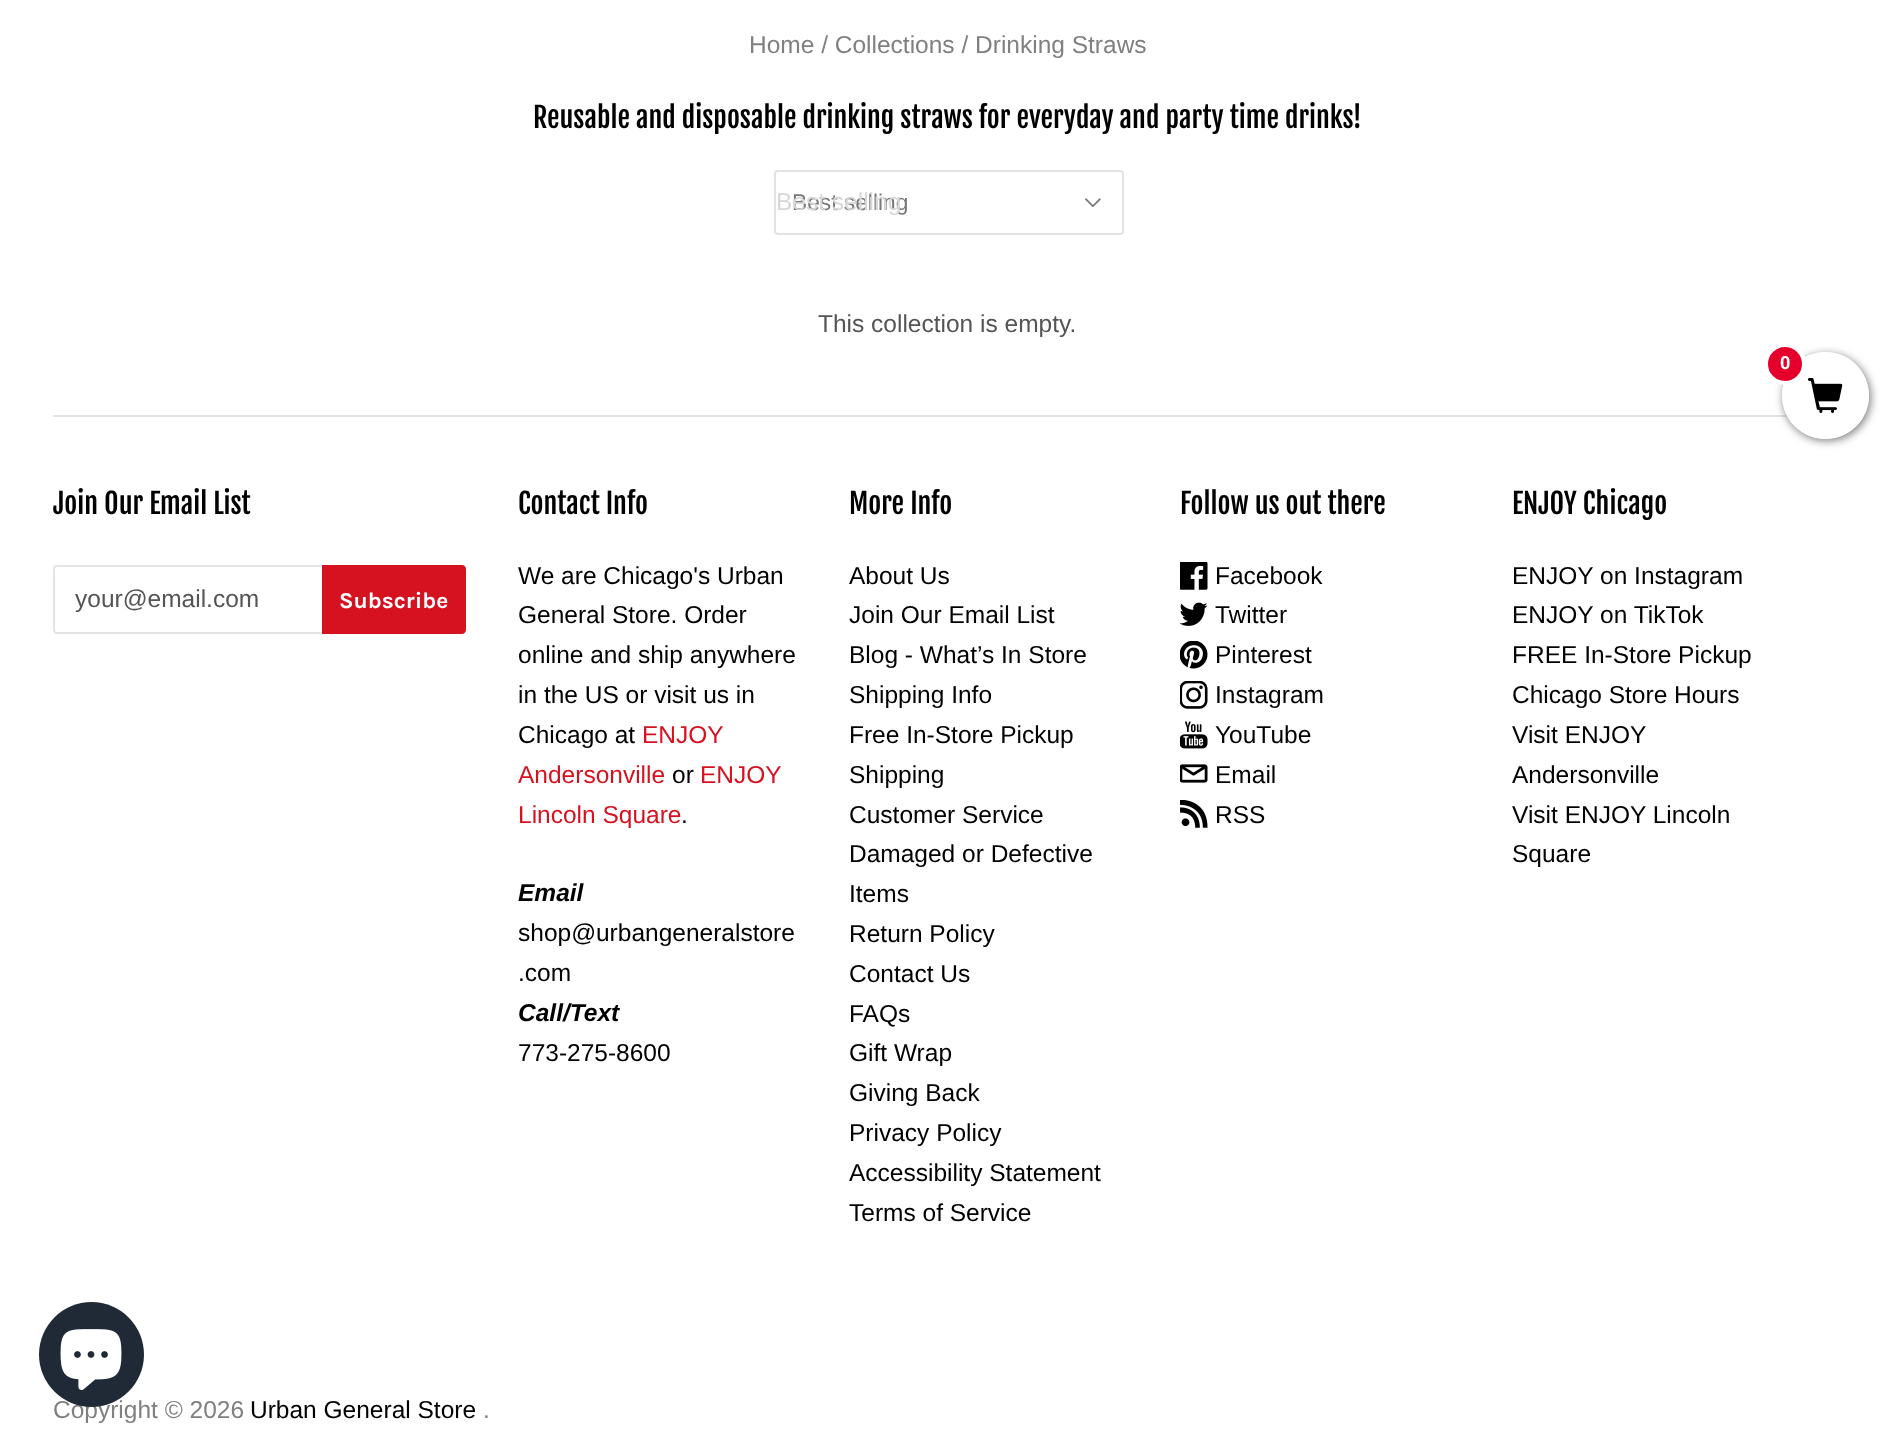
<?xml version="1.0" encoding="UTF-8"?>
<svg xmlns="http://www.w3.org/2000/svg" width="1894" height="1443">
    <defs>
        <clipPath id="clip1"><path d="M 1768 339 H 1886 V 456 H 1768 Z M 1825.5 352 C 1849.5 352 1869 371.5 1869 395.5 C 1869 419.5 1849.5 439 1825.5 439 C 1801.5 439 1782 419.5 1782 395.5 C 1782 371.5 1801.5 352 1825.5 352 Z" clip-rule="evenodd"/></clipPath>
        <filter id="blur1" x="-50%" y="-200%" width="200%" height="500%"><feGaussianBlur stdDeviation="4.5"/></filter>
    </defs>
    <rect width="100%" height="100%" fill="#FFFFFF"/>
    <text x="749" y="53" font-family="Liberation Sans" font-size="24.5" fill="#808080">Home / Collections / Drinking Straws</text>
    <text x="533" y="128" font-family="Fjalla One" font-size="28" fill="#000000">Reusable and disposable drinking straws for everyday and party time drinks!</text>
    <rect x="775" y="171" width="348" height="63" rx="3" fill="none" stroke="#E3E3E3" stroke-width="2"/>
    <text x="792" y="210" font-family="Liberation Sans" font-size="22.75" fill="#787878">Best selling</text>
    <text x="776" y="210" font-family="Liberation Sans" font-size="24.5" fill="#D7D7D7">Best selling</text>
    <image x="1085" y="198" width="16" height="9" href="img_01.png"/>
    <text x="818" y="332" font-family="Liberation Sans" font-size="24.5" fill="#555555">This collection is empty.</text>
    <rect x="53" y="415" width="1790" height="2" fill="#E4E4E4"/>
    <g clip-path="url(#clip1)">
        <rect x="1783" y="354" width="88" height="87" rx="43.5" fill="#808080" filter="url(#blur1)"/>
    </g>
    <circle cx="1825.5" cy="395.5" r="43.5" fill="#FFFFFF" fill-opacity="0.9"/>
    <circle cx="1785" cy="364" r="19" fill="#E4002B" stroke="#FFFFFF" stroke-width="4"/>
    <text x="1780" y="369" font-family="Roboto" font-size="18" font-weight="700" fill="#FFFFFF">0</text>
    <image x="1807" y="378" width="36" height="35" href="img_02.png"/>
    <text x="53" y="514" font-family="Fjalla One" font-size="28" fill="#000000">Join Our Email List</text>
    <rect x="54" y="566" width="411" height="67" rx="3" fill="none" stroke="#E4E4E4" stroke-width="2"/>
    <text x="75" y="607" font-family="Liberation Sans" font-size="24.5" fill="#555555">your@email.com</text>
    <path d="M 322 565 H 462 C 464 565 466 567 466 569 V 630 C 466 632 464 634 462 634 H 322 Z" fill="#D61220"/>
    <text x="339" y="608" font-family="Karla" font-size="22.75" font-weight="700" fill="#FFFFFF">Subscribe</text>
    <text x="518" y="514" font-family="Fjalla One" font-size="28" fill="#000000">Contact Info</text>
    <text font-family="Liberation Sans" font-size="24.5" fill="#000000">
        <tspan x="518" y="584">We are Chicago's Urban</tspan>
        <tspan x="518" y="623">General Store. Order</tspan>
        <tspan x="518" y="663">online and ship anywhere</tspan>
        <tspan x="518" y="703">in the US or visit us in</tspan>
        <tspan x="518" y="743">Chicago at</tspan>
    </text>
    <text x="642" y="743" font-family="Liberation Sans" font-size="24.5" fill="#D61220">ENJOY</text>
    <text x="518" y="783" font-family="Liberation Sans" font-size="24.5" fill="#D61220">Andersonville</text>
    <text x="672" y="783" font-family="Liberation Sans" font-size="24.5" fill="#000000">or</text>
    <text x="700" y="783" font-family="Liberation Sans" font-size="24.5" fill="#D61220">ENJOY</text>
    <text x="518" y="823" font-family="Liberation Sans" font-size="24.5" fill="#D61220">Lincoln Square</text>
    <text x="681" y="823" font-family="Liberation Sans" font-size="24.5" fill="#000000">.</text>
    <text x="518" y="901" font-family="Liberation Sans" font-size="24.5" font-weight="700" font-style="italic" fill="#000000">Email</text>
    <text font-family="Liberation Sans" font-size="24.5" fill="#000000">
        <tspan x="518" y="941">shop@urbangeneralstore</tspan>
        <tspan x="518" y="981">.com</tspan>
    </text>
    <text x="518" y="1021" font-family="Liberation Sans" font-size="24.5" font-weight="700" font-style="italic" fill="#000000">Call/Text</text>
    <text x="518" y="1061" font-family="Liberation Sans" font-size="24.5" fill="#000000">773-275-8600</text>
    <text x="849" y="514" font-family="Fjalla One" font-size="28" fill="#000000">More Info</text>
    <text font-family="Liberation Sans" font-size="24.5" fill="#000000">
        <tspan x="849" y="584">About Us</tspan>
        <tspan x="849" y="623">Join Our Email List</tspan>
        <tspan x="849" y="663">Blog - What’s In Store</tspan>
        <tspan x="849" y="703">Shipping Info</tspan>
        <tspan x="849" y="743">Free In-Store Pickup</tspan>
        <tspan x="849" y="783">Shipping</tspan>
        <tspan x="849" y="823">Customer Service</tspan>
        <tspan x="849" y="862">Damaged or Defective</tspan>
        <tspan x="849" y="902">Items</tspan>
        <tspan x="849" y="942">Return Policy</tspan>
        <tspan x="849" y="982">Contact Us</tspan>
        <tspan x="849" y="1022">FAQs</tspan>
        <tspan x="849" y="1061">Gift Wrap</tspan>
        <tspan x="849" y="1101">Giving Back</tspan>
        <tspan x="849" y="1141">Privacy Policy</tspan>
        <tspan x="849" y="1181">Accessibility Statement</tspan>
        <tspan x="849" y="1221">Terms of Service</tspan>
    </text>
    <text x="1180" y="514" font-family="Fjalla One" font-size="28" fill="#000000">Follow us out there</text>
    <image x="1180" y="562" width="28" height="28" href="img_03.png"/>
    <text x="1215" y="584" font-family="Liberation Sans" font-size="24.5" fill="#000000">Facebook</text>
    <image x="1180" y="602" width="28" height="24" href="img_04.png"/>
    <text x="1215" y="623" font-family="Liberation Sans" font-size="24.5" fill="#000000">Twitter</text>
    <image x="1180" y="641" width="28" height="28" href="img_05.png"/>
    <text x="1215" y="663" font-family="Liberation Sans" font-size="24.5" fill="#000000">Pinterest</text>
    <image x="1180" y="681" width="28" height="28" href="img_06.png"/>
    <text x="1215" y="703" font-family="Liberation Sans" font-size="24.5" fill="#000000">Instagram</text>
    <image x="1180" y="721" width="28" height="28" href="img_07.png"/>
    <text x="1215" y="743" font-family="Liberation Sans" font-size="24.5" fill="#000000">YouTube</text>
    <image x="1180" y="764" width="28" height="19" href="img_08.png"/>
    <text x="1215" y="783" font-family="Liberation Sans" font-size="24.5" fill="#000000">Email</text>
    <image x="1180" y="800" width="28" height="28" href="img_09.png"/>
    <text x="1215" y="823" font-family="Liberation Sans" font-size="24.5" fill="#000000">RSS</text>
    <text x="1512" y="514" font-family="Fjalla One" font-size="28" fill="#000000">ENJOY Chicago</text>
    <text font-family="Liberation Sans" font-size="24.5" fill="#000000">
        <tspan x="1512" y="584">ENJOY on Instagram</tspan>
        <tspan x="1512" y="623">ENJOY on TikTok</tspan>
        <tspan x="1512" y="663">FREE In-Store Pickup</tspan>
        <tspan x="1512" y="703">Chicago Store Hours</tspan>
        <tspan x="1512" y="743">Visit ENJOY</tspan>
        <tspan x="1512" y="783">Andersonville</tspan>
        <tspan x="1512" y="823">Visit ENJOY Lincoln</tspan>
        <tspan x="1512" y="862">Square</tspan>
    </text>
    <text x="53" y="1418" font-family="Liberation Sans" font-size="24.5" fill="#808080">Copyright © 2026</text>
    <text x="250" y="1418" font-family="Liberation Sans" font-size="24.5" fill="#000000">Urban General Store</text>
    <text x="483" y="1418" font-family="Liberation Sans" font-size="24.5" fill="#808080">.</text>
    <circle cx="91.5" cy="1354.5" r="52.5" fill="#202A36"/>
    <image x="60" y="1329" width="62" height="61" href="img_10.png"/>
</svg>
